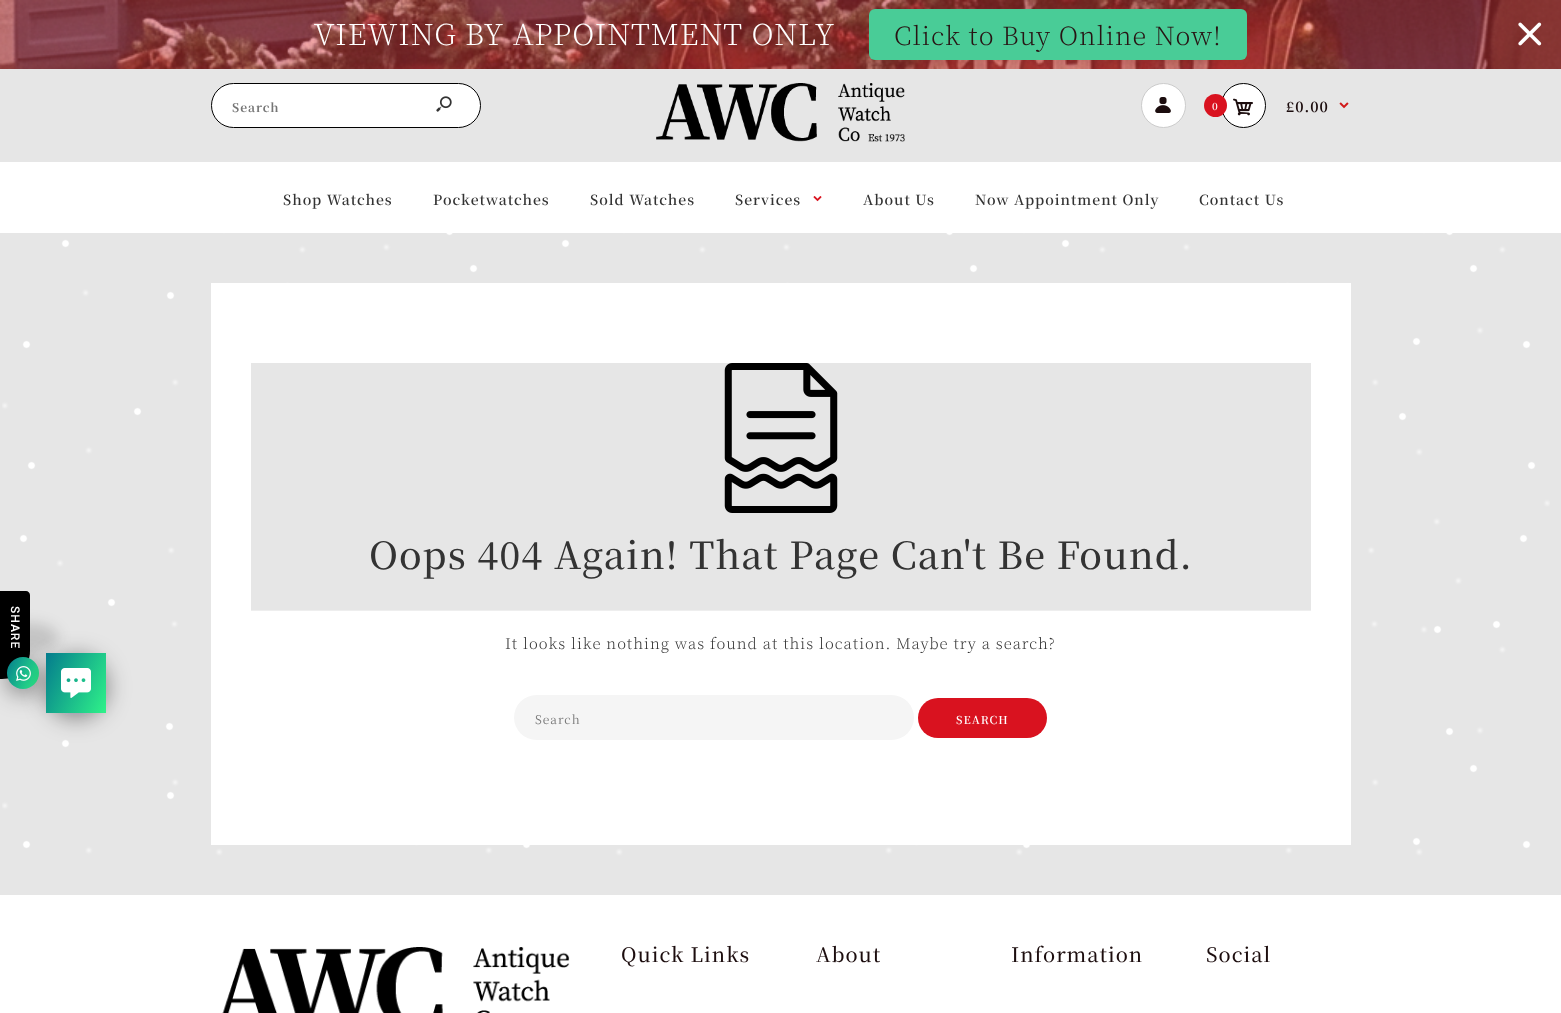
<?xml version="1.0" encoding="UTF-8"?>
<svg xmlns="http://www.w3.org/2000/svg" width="1561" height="1013">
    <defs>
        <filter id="blur1" x="-50%" y="-200%" width="200%" height="500%"><feGaussianBlur stdDeviation="7"/></filter>
        <filter id="blur2" x="-50%" y="-200%" width="200%" height="500%"><feGaussianBlur stdDeviation="12"/></filter>
        <linearGradient id="g1" gradientUnits="userSpaceOnUse" x1="3.7" y1="664" x2="42" y2="682"><stop offset="0" stop-color="#047C8D"/><stop offset="1" stop-color="#2FF289"/></linearGradient>
        <linearGradient id="g2" gradientUnits="userSpaceOnUse" x1="40" y1="666" x2="112" y2="700"><stop offset="0" stop-color="#047C8D"/><stop offset="1" stop-color="#2FF289"/></linearGradient>
    </defs>
    <rect width="100%" height="100%" fill="#E6E6E6"/>
    <image x="0" y="0" width="1561" height="69" href="img_01.png"/>
    <text x="314" y="45" font-family="Noto Serif JP" font-size="29" font-weight="200" letter-spacing="1" fill="#FFFFFF">VIEWING BY APPOINTMENT ONLY</text>
    <rect x="869" y="9" width="378" height="51" rx="6" fill="#49CC97"/>
    <text x="894" y="45" font-family="Noto Serif JP" font-size="25.4" font-weight="200" letter-spacing="1" fill="#281313">Click to Buy Online Now!</text>
    <image x="1518" y="22" width="24" height="24" href="img_02.png"/>
    <rect x="211.5" y="83.5" width="269" height="44" rx="22" fill="#FFFFFF" stroke="#000000"/>
    <text x="232" y="112" font-family="Noto Serif JP" font-size="12" font-weight="700" letter-spacing="1" fill="#757575">Search</text>
    <image x="436" y="96" width="16" height="16" href="img_03.png"/>
    <image x="656" y="83" width="249" height="59" href="img_04.png"/>
    <circle cx="1163.5" cy="105.5" r="22" fill="#FFFFFF" stroke="#CCCCCC"/>
    <image x="1155" y="97" width="16" height="16" href="img_05.png"/>
    <circle cx="1243.5" cy="105.5" r="22" fill="#FFFFFF" stroke="#000000"/>
    <circle cx="1215.5" cy="105.5" r="11.5" fill="#D9121F"/>
    <text x="1212" y="110" font-family="Noto Serif JP" font-size="10" font-weight="600" letter-spacing="1" fill="#FFFFFF">0</text>
    <image x="1233" y="98" width="20" height="18" href="img_06.png"/>
    <text x="1286" y="112" font-family="Noto Serif JP" font-size="14" font-weight="700" letter-spacing="1" fill="#1C0D0E">£0.00</text>
    <image x="1339" y="102" width="10" height="7" href="img_07.png"/>
    <rect x="0" y="162" width="1561" height="71" fill="#FFFFFF"/>
    <text x="283" y="205" font-family="Noto Serif JP" font-size="14" font-weight="600" letter-spacing="1" fill="#333333">Shop Watches</text>
    <text x="433" y="205" font-family="Noto Serif JP" font-size="14" font-weight="600" letter-spacing="1" fill="#333333">Pocketwatches</text>
    <text x="590" y="205" font-family="Noto Serif JP" font-size="14" font-weight="600" letter-spacing="1" fill="#333333">Sold Watches</text>
    <text x="735" y="205" font-family="Noto Serif JP" font-size="14" font-weight="600" letter-spacing="1" fill="#333333">Services</text>
    <image x="813" y="196" width="9" height="6" href="img_08.png"/>
    <text x="863" y="205" font-family="Noto Serif JP" font-size="14" font-weight="600" letter-spacing="1" fill="#333333">About Us</text>
    <text x="975" y="205" font-family="Noto Serif JP" font-size="14" font-weight="600" letter-spacing="1" fill="#333333">Now Appointment Only</text>
    <text x="1199" y="205" font-family="Noto Serif JP" font-size="14" font-weight="600" letter-spacing="1" fill="#333333">Contact Us</text>
    <rect x="211" y="283" width="1140" height="562" fill="#FFFFFF"/>
    <image x="2" y="233" width="1548" height="624" href="img_11.png"/>
    <rect x="251" y="363" width="1060" height="247" fill="#E6E6E6"/>
    <rect x="251" y="610" width="1060" height="1" fill="#EEEEEE"/>
    <image x="724" y="363" width="114" height="150" href="img_09.png"/>
    <text x="369" y="569" font-family="Noto Serif JP" font-size="37.5" font-weight="500" letter-spacing="1" fill="#333333">Oops 404 Again! That Page Can't Be Found.</text>
    <text x="505" y="649" font-family="Noto Serif JP" font-size="15" font-weight="200" letter-spacing="1" fill="#333333">It looks like nothing was found at this location. Maybe try a search?</text>
    <rect x="514" y="695" width="400" height="45" rx="22.5" fill="#F5F5F5"/>
    <text x="535" y="724" font-family="Noto Serif JP" font-size="12" letter-spacing="1" fill="#757575">Search</text>
    <rect x="918" y="698" width="129" height="40" rx="20" fill="#D9121F"/>
    <text x="956" y="724" font-family="Noto Serif JP" font-size="11" font-weight="600" letter-spacing="1" fill="#FFFFFF">SEARCH</text>
    <rect x="0" y="895" width="1561" height="118" fill="#FFFFFF"/>
    <image x="222" y="947" width="348" height="66" href="img_10.png"/>
    <text x="621" y="962" font-family="Noto Serif JP" font-size="20" font-weight="500" letter-spacing="1" fill="#1C0D0E">Quick Links</text>
    <text x="816" y="962" font-family="Noto Serif JP" font-size="20" font-weight="500" letter-spacing="1" fill="#1C0D0E">About</text>
    <text x="1011" y="962" font-family="Noto Serif JP" font-size="20" font-weight="500" letter-spacing="1" fill="#1C0D0E">Information</text>
    <text x="1206" y="962" font-family="Noto Serif JP" font-size="20" font-weight="500" letter-spacing="1" fill="#1C0D0E">Social</text>
    <rect x="-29" y="623" width="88" height="30" rx="28" fill="#000000" fill-opacity="0.15" filter="url(#blur1)"/>
    <path d="M 0 679 V 591 H 26 C 28 591 30 593 30 595 V 651 C 30 667 17 679 2 679 Z" fill="#000000"/>
    <text x="11" y="606" transform="rotate(90 11 606)" font-family="Roboto" font-size="12" font-weight="500" letter-spacing="1" fill="#FFFFFF">SHARE</text>
    <rect x="7" y="661" width="32" height="32" rx="16" fill="#020610" fill-opacity="0.5" filter="url(#blur2)"/>
    <circle cx="23" cy="673" r="16" fill="url(#g1)"/>
    <image x="16" y="666" width="15" height="15" href="img_12.png"/>
    <rect x="46" y="657" width="60" height="60" rx="30" fill="#020610" fill-opacity="0.5" filter="url(#blur2)"/>
    <rect x="46" y="653" width="60" height="60" fill="url(#g2)"/>
    <image x="61" y="668" width="30" height="30" href="img_13.png"/>
</svg>
